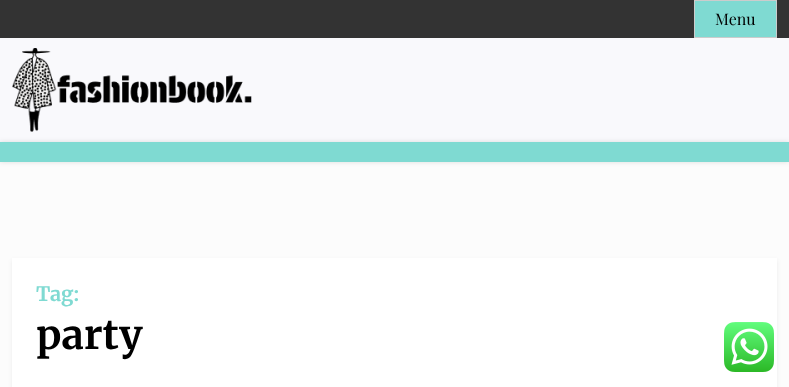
<?xml version="1.0" encoding="UTF-8"?>
<svg xmlns="http://www.w3.org/2000/svg" width="789" height="387">
    <defs>
        <filter id="blur1" x="-50%" y="-200%" width="200%" height="500%"><feGaussianBlur stdDeviation="2.5"/></filter>
        <filter id="blur2" x="-50%" y="-200%" width="200%" height="500%"><feGaussianBlur stdDeviation="2"/></filter>
    </defs>
    <rect width="100%" height="100%" fill="#FCFCFC"/>
    <rect x="0" y="0" width="789" height="38" fill="#333333"/>
    <rect x="694.5" y="0.5" width="82" height="37" fill="#7FDAD2" stroke="#CCCCCC"/>
    <text x="715" y="25" font-family="Playfair Display" font-size="16" fill="#000000">Menu</text>
    <rect x="0" y="38" width="789" height="104" fill="#F9F9FC"/>
    <image x="12" y="48" width="240" height="84" href="img_01.png"/>
    <rect x="0" y="142" width="789" height="20" fill="#000000" fill-opacity="0.12" filter="url(#blur1)"/>
    <rect x="0" y="142" width="789" height="20" fill="#7FDAD2"/>
    <rect x="12" y="260" width="765" height="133" fill="#000000" fill-opacity="0.07" filter="url(#blur2)"/>
    <rect x="12" y="258" width="765" height="129" fill="#FFFFFF"/>
    <text x="36" y="301" font-family="Merriweather" font-size="20" font-weight="700" fill="#7FDAD2">Tag:</text>
    <text x="36" y="349" font-family="Merriweather" font-size="40" font-weight="700" fill="#000000">party</text>
    <image x="724" y="322" width="50" height="50" href="img_02.png"/>
</svg>
